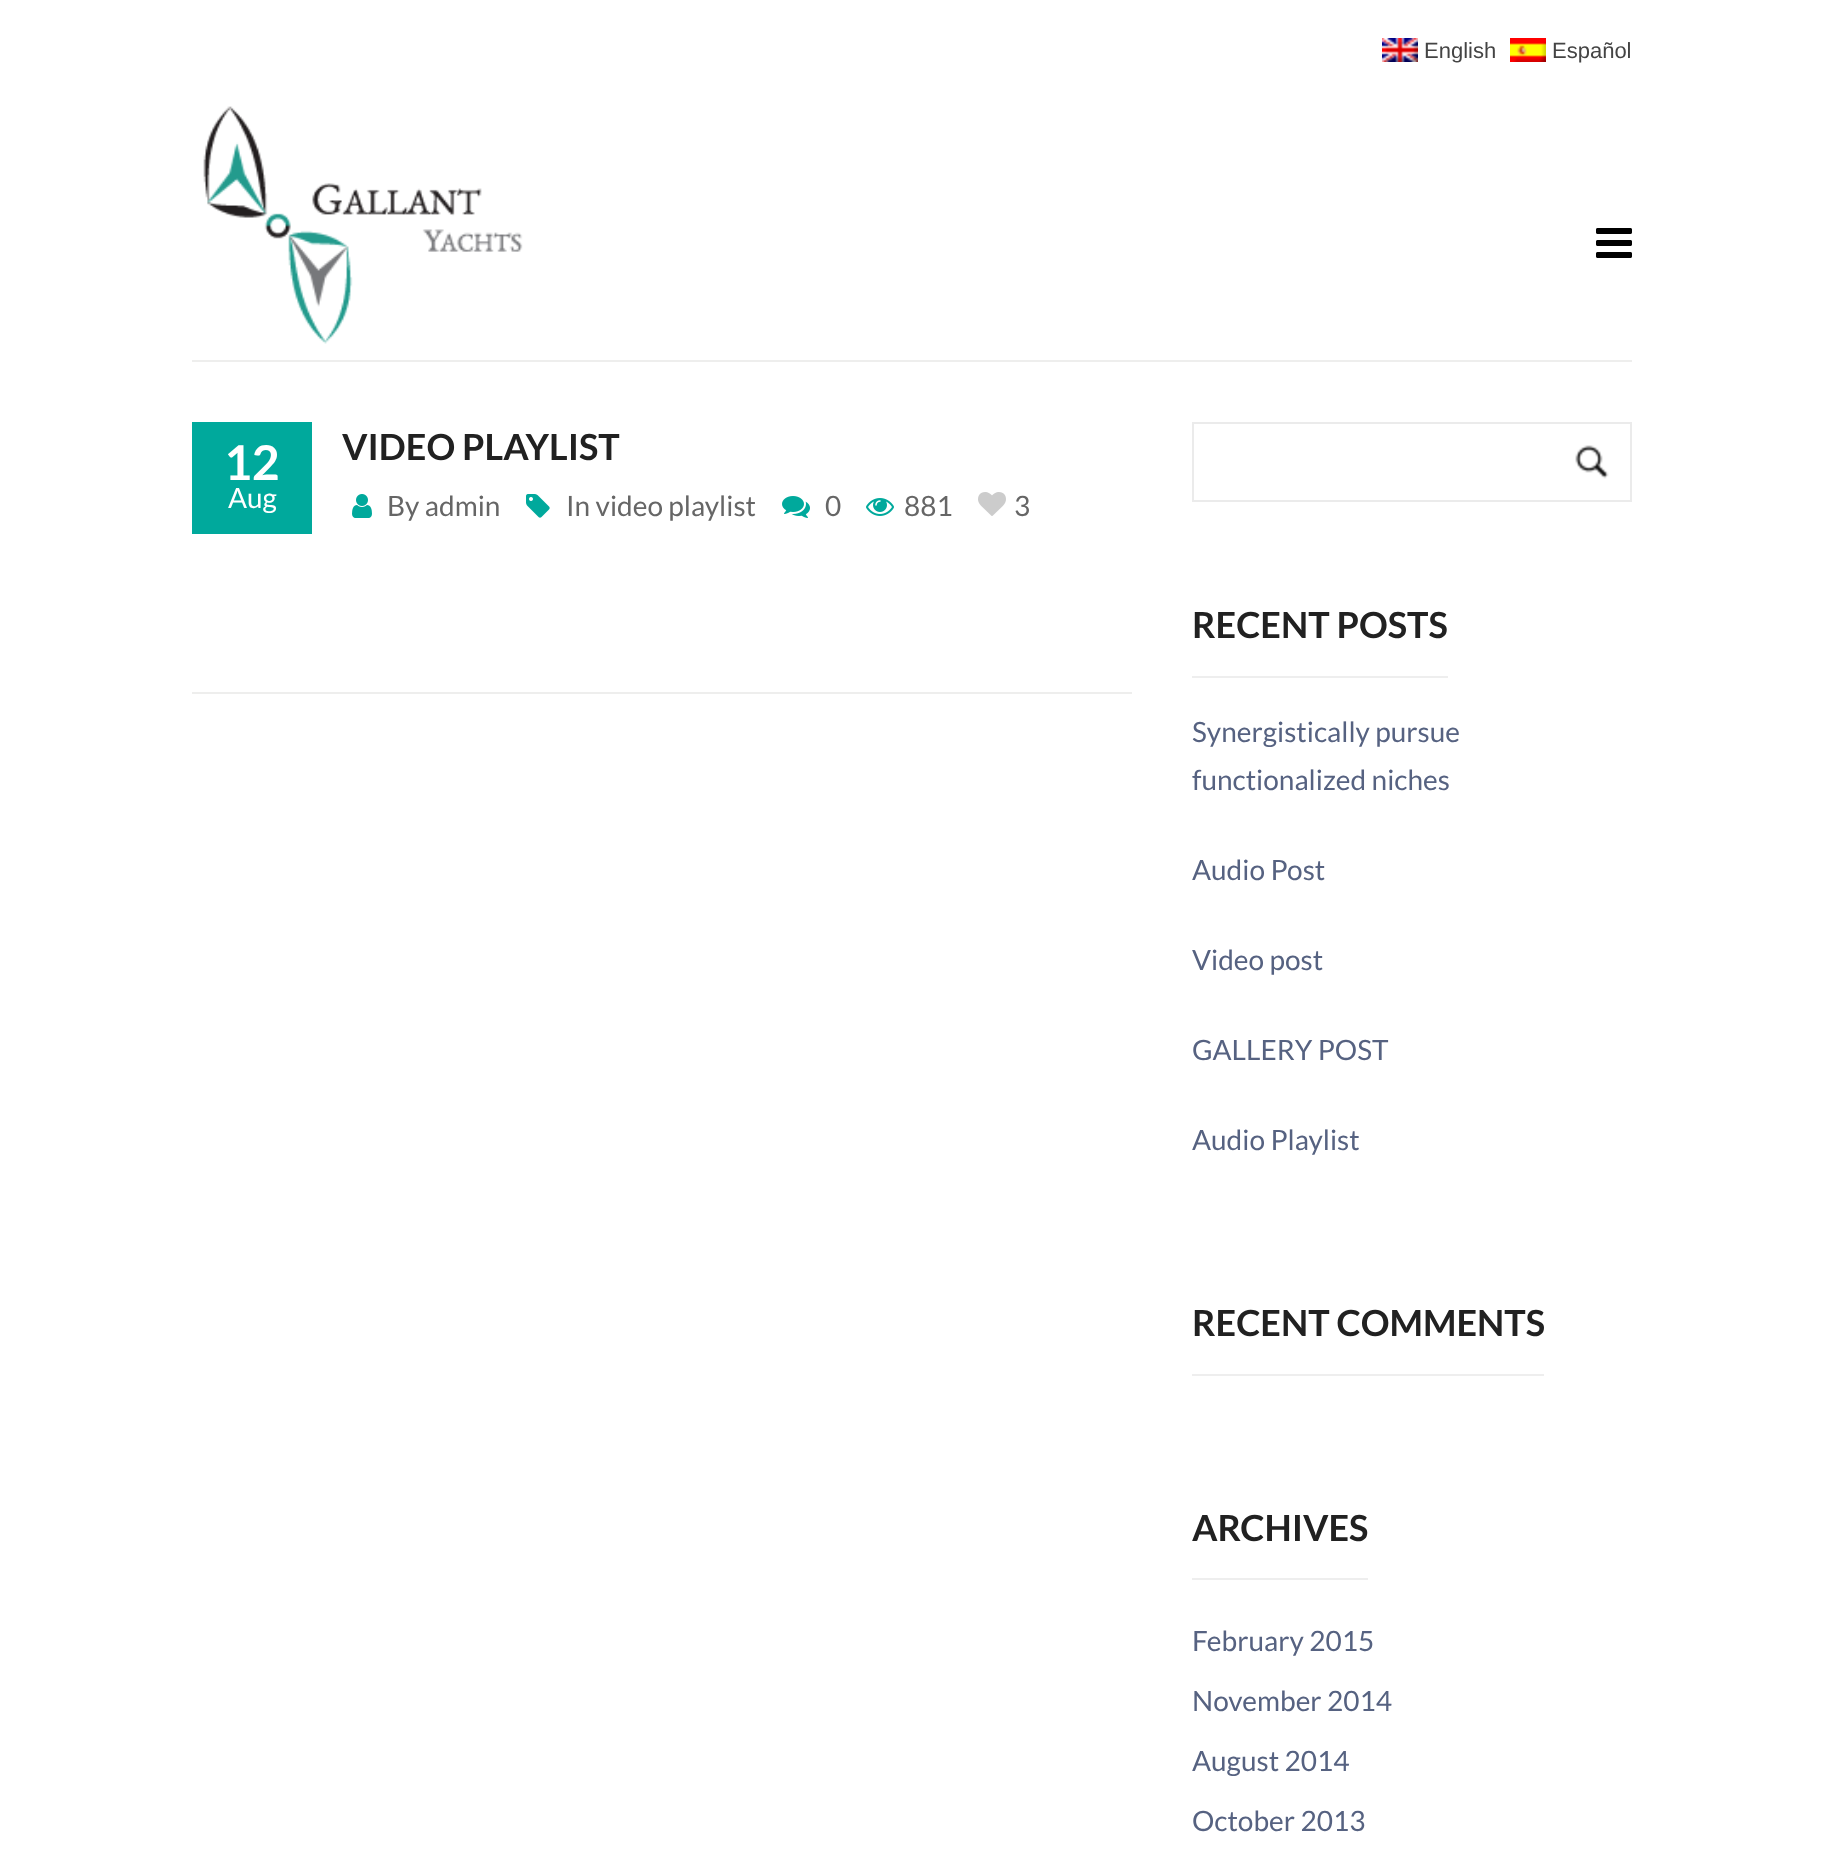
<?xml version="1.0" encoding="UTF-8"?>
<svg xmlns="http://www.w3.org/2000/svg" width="1824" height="1862">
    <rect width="100%" height="100%" fill="#FFFFFF"/>
    <image x="1382" y="38" width="36" height="24" href="img_01.png"/>
    <text x="1424" y="58" font-family="Liberation Sans" font-size="22" fill="#444444">English</text>
    <image x="1510" y="38" width="36" height="24" href="img_02.png"/>
    <text x="1552" y="58" font-family="Liberation Sans" font-size="22" fill="#444444">Español</text>
    <image x="203" y="106" width="320" height="238" href="img_03.png"/>
    <image x="1596" y="228" width="36" height="30" href="img_04.png"/>
    <rect x="192" y="360" width="1440" height="2" fill="#EEEEED"/>
    <rect x="192" y="692" width="940" height="2" fill="#EEEEED"/>
    <rect x="192" y="422" width="120" height="112" fill="#00A99C"/>
    <text x="224" y="480" font-family="Lato" font-size="48" font-weight="700" fill="#FFFFFF">12</text>
    <text x="228" y="508" font-family="Lato" font-size="28" fill="#FFFFFF">Aug</text>
    <text x="342" y="460" font-family="Lato" font-size="36" font-weight="700" fill="#212121">VIDEO PLAYLIST</text>
    <image x="352" y="494" width="20" height="24" href="img_05.png"/>
    <text x="387" y="516" font-family="Lato" font-size="28" fill="#666666">By admin</text>
    <image x="526" y="494" width="24" height="24" href="img_06.png"/>
    <text x="566" y="516" font-family="Lato" font-size="28" fill="#666666">In video playlist</text>
    <image x="782" y="496" width="28" height="22" href="img_07.png"/>
    <text x="825" y="516" font-family="Lato" font-size="28" fill="#666666">0</text>
    <image x="866" y="498" width="28" height="18" href="img_08.png"/>
    <text x="904" y="516" font-family="Lato" font-size="28" fill="#666666">881</text>
    <image x="978" y="492" width="28" height="24" href="img_09.png"/>
    <text x="1014" y="516" font-family="Lato" font-size="28" fill="#666666">3</text>
    <rect x="1193" y="423" width="438" height="78" fill="none" stroke="#EBEBEB" stroke-width="2"/>
    <image x="1575" y="445" width="34" height="34" href="img_10.png"/>
    <rect x="1192" y="676" width="256" height="2" fill="#EEEEEE"/>
    <text x="1192" y="638" font-family="Lato" font-size="36" font-weight="700" fill="#212121">RECENT POSTS</text>
    <text font-family="Lato" font-size="28" fill="#566281">
        <tspan x="1192" y="742">Synergistically pursue</tspan>
        <tspan x="1192" y="790">functionalized niches</tspan>
    </text>
    <text x="1192" y="880" font-family="Lato" font-size="28" fill="#566281">Audio Post</text>
    <text x="1192" y="970" font-family="Lato" font-size="28" fill="#566281">Video post</text>
    <text x="1192" y="1060" font-family="Lato" font-size="28" fill="#566281">GALLERY POST</text>
    <text x="1192" y="1150" font-family="Lato" font-size="28" fill="#566281">Audio Playlist</text>
    <rect x="1192" y="1374" width="352" height="2" fill="#EEEEEE"/>
    <text x="1192" y="1336" font-family="Lato" font-size="36" font-weight="700" fill="#212121">RECENT COMMENTS</text>
    <rect x="1192" y="1578" width="176" height="2" fill="#EEEEEE"/>
    <text x="1192" y="1541" font-family="Lato" font-size="36" font-weight="700" fill="#212121">ARCHIVES</text>
    <text x="1192" y="1651" font-family="Lato" font-size="28" fill="#566281">February 2015</text>
    <text x="1192" y="1711" font-family="Lato" font-size="28" fill="#566281">November 2014</text>
    <text x="1192" y="1771" font-family="Lato" font-size="28" fill="#566281">August 2014</text>
    <text x="1192" y="1831" font-family="Lato" font-size="28" fill="#566281">October 2013</text>
</svg>
